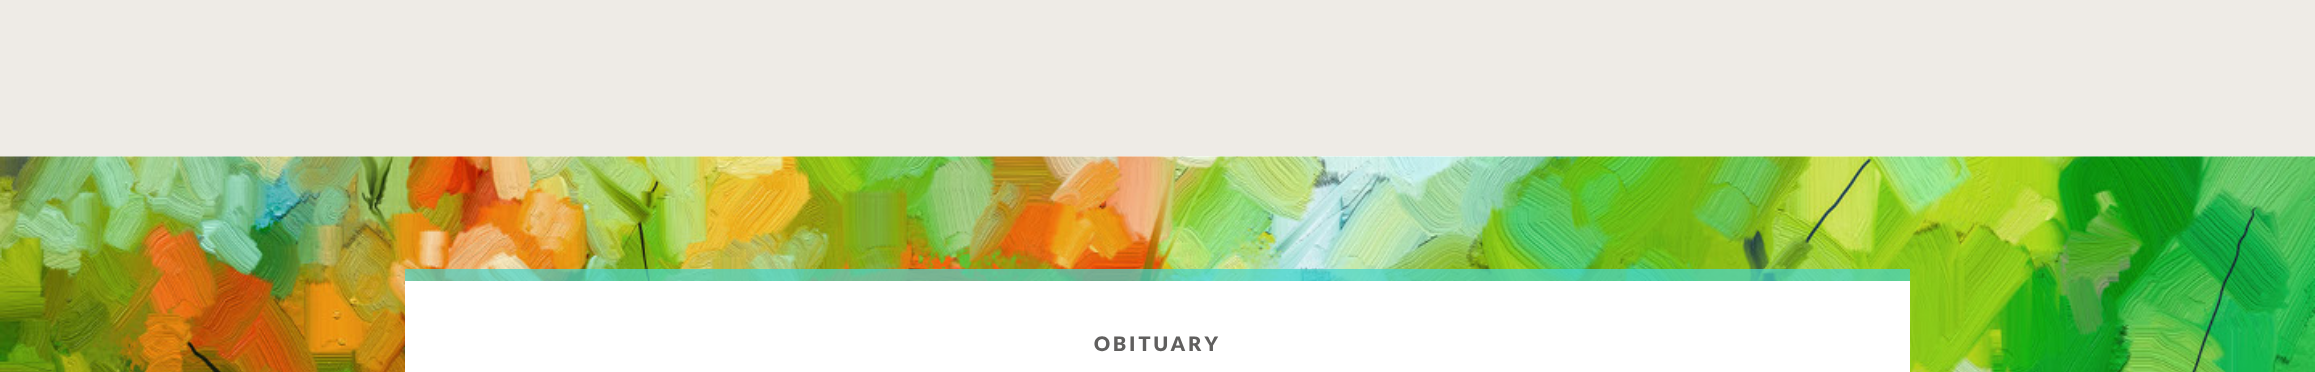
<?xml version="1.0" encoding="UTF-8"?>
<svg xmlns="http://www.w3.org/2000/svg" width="2315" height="372">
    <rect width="100%" height="100%" fill="#FFFFFF"/>
    <rect x="0" y="0" width="2315" height="156" fill="#EEEBE6"/>
    <image x="0" y="156" width="2315" height="216" href="img_01.png"/>
    <rect x="405" y="281" width="1505" height="91" fill="#FFFFFF"/>
    <rect x="405" y="269" width="1505" height="12" fill="#47D5CD" fill-opacity="0.7"/>
    <text x="1094" y="351" font-family="Lato" font-size="20" font-weight="900" letter-spacing="3" fill="#605F5E">OBITUARY</text>
</svg>
